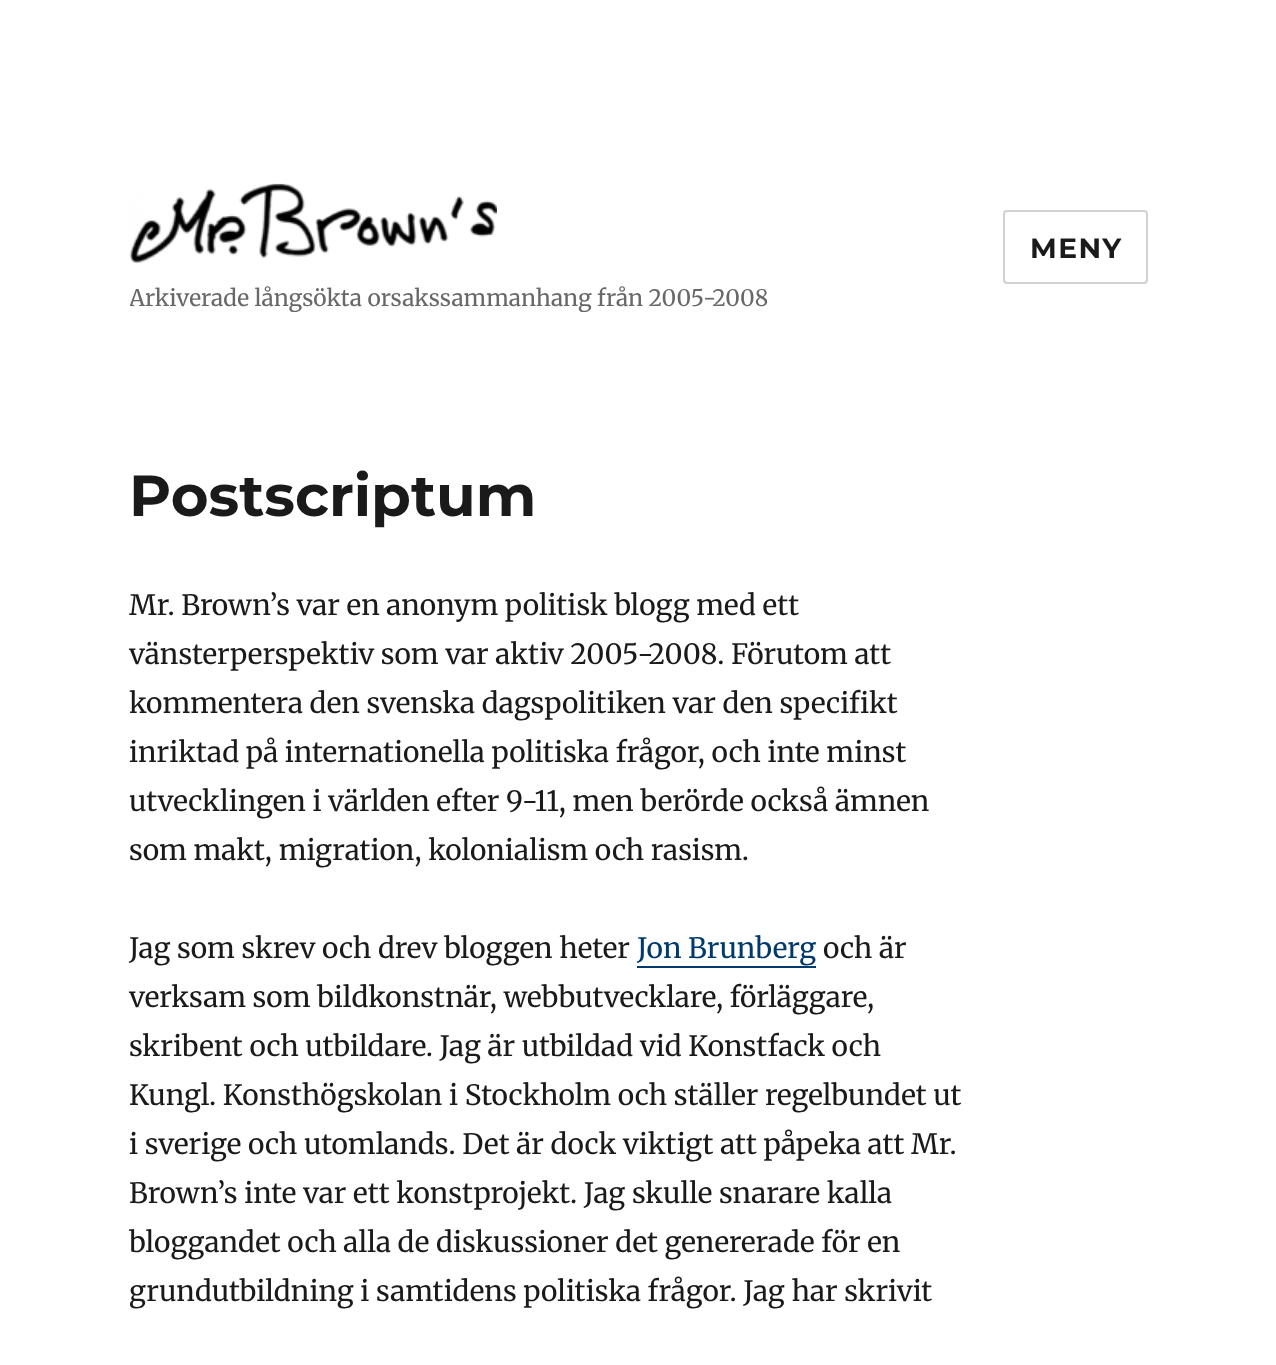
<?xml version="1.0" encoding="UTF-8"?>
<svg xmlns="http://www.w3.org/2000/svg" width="1276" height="1365">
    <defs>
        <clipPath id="clip1"><rect x="130" y="184" width="638" height="128"/></clipPath>
    </defs>
    <rect width="100%" height="100%" fill="#FFFFFF"/>
    <rect x="1004" y="211" width="143" height="72" rx="3" fill="none" stroke="#D1D1D1" stroke-width="2"/>
    <text x="1030" y="258" font-family="Montserrat" font-size="28" font-weight="700" letter-spacing="1.5" fill="#1A1A1A">MENY</text>
    <image x="129" y="183" width="368" height="80" href="img_01.png"/>
    <g clip-path="url(#clip1)">
        <text x="129" y="306" font-family="Merriweather" font-size="22.75" fill="#686868">Arkiverade långsökta orsakssammanhang från 2005-2008</text>
    </g>
    <text x="129" y="516" font-family="Montserrat" font-size="57.75" font-weight="700" fill="#1A1A1A">Postscriptum</text>
    <text font-family="Merriweather" font-size="28" fill="#1A1A1A">
        <tspan x="129" y="615">Mr. Brown’s var en anonym politisk blogg med ett</tspan>
        <tspan x="129" y="664">vänsterperspektiv som var aktiv 2005-2008. Förutom att</tspan>
        <tspan x="129" y="713">kommentera den svenska dagspolitiken var den specifikt</tspan>
        <tspan x="129" y="762">inriktad på internationella politiska frågor, och inte minst</tspan>
        <tspan x="129" y="811">utvecklingen i världen efter 9-11, men berörde också ämnen</tspan>
        <tspan x="129" y="860">som makt, migration, kolonialism och rasism.</tspan>
    </text>
    <text x="129" y="958" font-family="Merriweather" font-size="28" fill="#1A1A1A">Jag som skrev och drev bloggen heter</text>
    <text x="637" y="958" font-family="Merriweather" font-size="28" fill="#00396B">Jon Brunberg</text>
    <path d="M 637 966 V 968 H 816 V 933 V 966 Z" fill="#00396B"/>
    <text x="823" y="958" font-family="Merriweather" font-size="28" fill="#1A1A1A">och är</text>
    <text font-family="Merriweather" font-size="28" fill="#1A1A1A">
        <tspan x="129" y="1007">verksam som bildkonstnär, webbutvecklare, förläggare,</tspan>
        <tspan x="129" y="1056">skribent och utbildare. Jag är utbildad vid Konstfack och</tspan>
        <tspan x="129" y="1105">Kungl. Konsthögskolan i Stockholm och ställer regelbundet ut</tspan>
        <tspan x="129" y="1154">i sverige och utomlands. Det är dock viktigt att påpeka att Mr.</tspan>
        <tspan x="129" y="1203">Brown’s inte var ett konstprojekt. Jag skulle snarare kalla</tspan>
        <tspan x="129" y="1252">bloggandet och alla de diskussioner det genererade för en</tspan>
        <tspan x="129" y="1301">grundutbildning i samtidens politiska frågor. Jag har skrivit</tspan>
    </text>
</svg>
